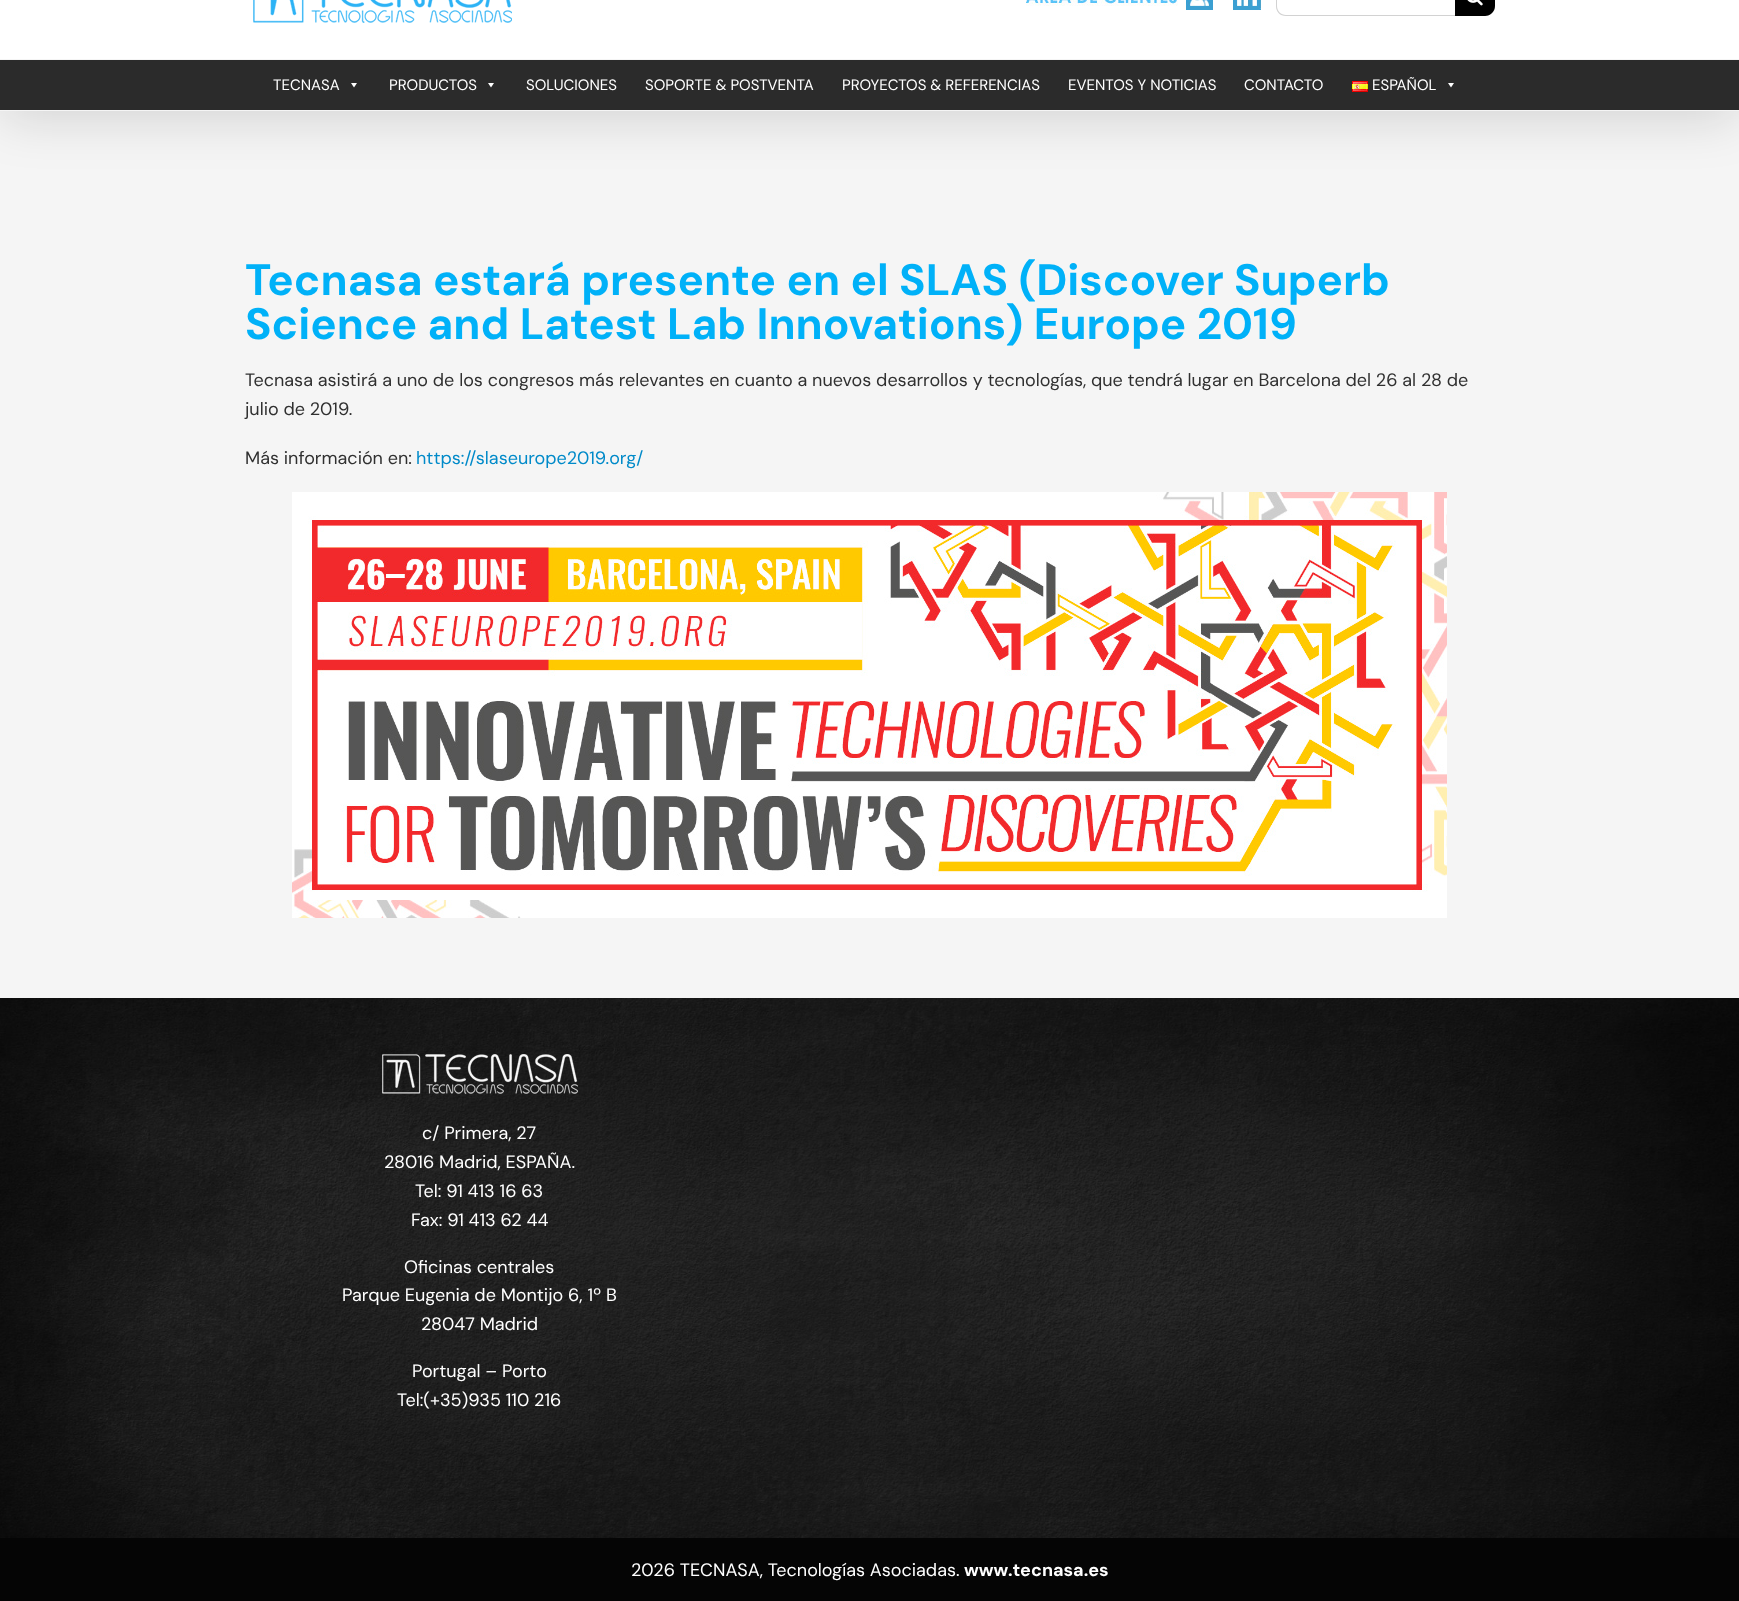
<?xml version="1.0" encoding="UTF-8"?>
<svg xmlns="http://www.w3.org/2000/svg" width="1739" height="1601">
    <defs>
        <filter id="blur1" x="-50%" y="-200%" width="200%" height="500%"><feGaussianBlur stdDeviation="25"/></filter>
    </defs>
    <rect width="100%" height="100%" fill="#F5F5F5"/>
    <rect x="2" y="-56" width="1735" height="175" fill="#000000" fill-opacity="0.14" filter="url(#blur1)"/>
    <rect x="0" y="0" width="1739" height="59" fill="#FFFFFF"/>
    <rect x="0" y="59" width="1739" height="1" fill="#F5F5F5"/>
    <image x="253" y="0" width="259" height="23" href="img_01.png"/>
    <image x="1026" y="0" width="187" height="10" href="img_02.png"/>
    <image x="1233" y="0" width="28" height="10" href="img_03.png"/>
    <path d="M 1286 -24 C 1280 -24 1276 -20 1276 -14 V 6 C 1276 12 1280 16 1286 16 H 1455 V 15 H 1286 C 1281 15 1277 11 1277 6 V -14 C 1277 -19 1281 -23 1286 -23 H 1455 V -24 Z" fill="#D2D2D2"/>
    <path d="M 1455 -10 H 1485 C 1490.5 -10 1495 -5.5 1495 0 V 6 C 1495 11.5 1490.5 16 1485 16 H 1455 Z" fill="#000000"/>
    <image x="1467" y="0" width="16" height="6" href="img_04.png"/>
    <rect x="0" y="60" width="1739" height="50" fill="#2B2B2B"/>
    <rect x="0" y="110" width="1739" height="1" fill="#F5F5F5"/>
    <text x="273" y="90" font-family="DM Sans" font-size="15" fill="#FFFFFF">TECNASA</text>
    <path d="M 357 83 L 354 87.5 L 351 83 Z" fill="#FFFFFF"/>
    <text x="389" y="90" font-family="DM Sans" font-size="15" fill="#FFFFFF">PRODUCTOS</text>
    <path d="M 494 83 L 491 87.5 L 488 83 Z" fill="#FFFFFF"/>
    <text x="526" y="90" font-family="DM Sans" font-size="15" fill="#FFFFFF">SOLUCIONES</text>
    <text x="645" y="90" font-family="DM Sans" font-size="15" fill="#FFFFFF">SOPORTE &amp; POSTVENTA</text>
    <text x="842" y="90" font-family="DM Sans" font-size="15" fill="#FFFFFF">PROYECTOS &amp; REFERENCIAS</text>
    <text x="1068" y="90" font-family="DM Sans" font-size="15" fill="#FFFFFF">EVENTOS Y NOTICIAS</text>
    <text x="1244" y="90" font-family="DM Sans" font-size="15" fill="#FFFFFF">CONTACTO</text>
    <image x="1352" y="81" width="16" height="11" href="img_05.png"/>
    <text x="1372" y="90" font-family="DM Sans" font-size="15" fill="#FFFFFF">ESPAÑOL</text>
    <path d="M 1454 83 L 1451 87.5 L 1448 83 Z" fill="#FFFFFF"/>
    <text font-family="DM Sans" font-size="44" font-weight="700" fill="#00B1F8">
        <tspan x="245" y="295">Tecnasa estará presente en el SLAS (Discover Superb</tspan>
        <tspan x="245" y="339">Science and Latest Lab Innovations) Europe 2019</tspan>
    </text>
    <text font-family="DM Sans" font-size="18" fill="#303030">
        <tspan x="245" y="386">Tecnasa asistirá a uno de los congresos más relevantes en cuanto a nuevos desarrollos y tecnologías, que tendrá lugar en Barcelona del 26 al 28 de</tspan>
        <tspan x="245" y="415">julio de 2019.</tspan>
    </text>
    <text x="245" y="464" font-family="DM Sans" font-size="18" fill="#303030">Más información en:</text>
    <text x="416" y="464" font-family="DM Sans" font-size="18" fill="#008AC9">https://slaseurope2019.org/</text>
    <image x="292" y="492" width="1155" height="426" href="img_06.png"/>
    <image x="0" y="998" width="1739" height="540" href="img_07.png"/>
    <image x="382" y="1054" width="196" height="40" href="img_08.png"/>
    <text x="422" y="1139" font-family="DM Sans" font-size="18" fill="#FFFFFF">c/ Primera, 27</text>
    <text x="384" y="1168" font-family="DM Sans" font-size="18" fill="#FFFFFF">28016 Madrid, ESPAÑA.</text>
    <text x="415" y="1197" font-family="DM Sans" font-size="18" fill="#FFFFFF">Tel: 91 413 16 63</text>
    <text x="411" y="1226" font-family="DM Sans" font-size="18" fill="#FFFFFF">Fax: 91 413 62 44</text>
    <text x="404" y="1273" font-family="DM Sans" font-size="18" fill="#FFFFFF">Oficinas centrales</text>
    <text x="342" y="1301" font-family="DM Sans" font-size="18" fill="#FFFFFF">Parque Eugenia de Montijo 6, 1º B</text>
    <text x="421" y="1330" font-family="DM Sans" font-size="18" fill="#FFFFFF">28047 Madrid</text>
    <text x="412" y="1377" font-family="DM Sans" font-size="18" fill="#FFFFFF">Portugal – Porto</text>
    <text x="397" y="1406" font-family="DM Sans" font-size="18" fill="#FFFFFF">Tel:(+35)935 110 216</text>
    <rect x="0" y="1538" width="1739" height="63" fill="#050505"/>
    <text x="631" y="1576" font-family="DM Sans" font-size="18" fill="#FFFFFF">2026 TECNASA, Tecnologías Asociadas.</text>
    <text x="964" y="1576" font-family="DM Sans" font-size="18" font-weight="700" fill="#FFFFFF">www.tecnasa.es</text>
</svg>
